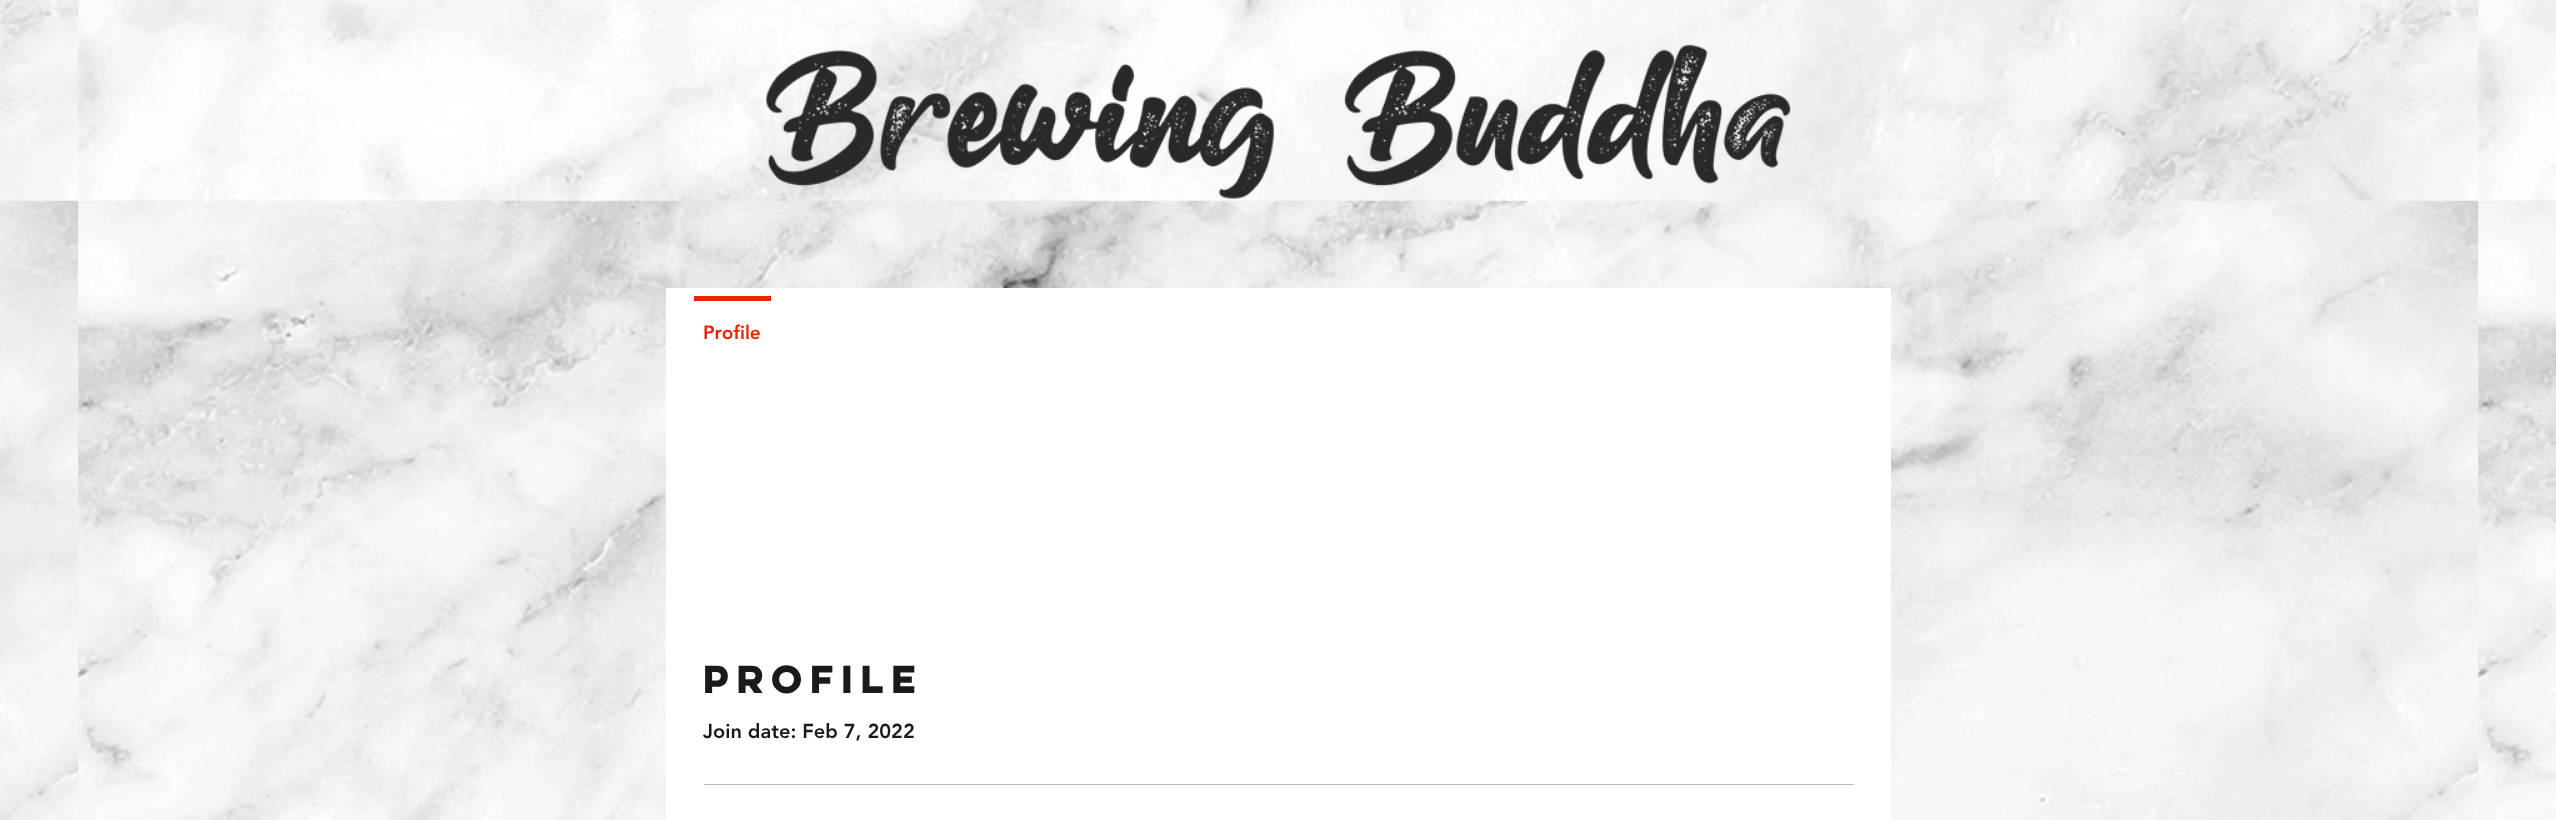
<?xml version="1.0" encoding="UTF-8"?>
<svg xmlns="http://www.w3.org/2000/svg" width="2556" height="820">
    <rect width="100%" height="100%" fill="#FFFFFF"/>
    <image x="0" y="0" width="2556" height="820" href="img_01.png"/>
    <image x="766" y="44" width="1025" height="155" href="img_02.png"/>
    <rect x="666" y="288" width="1225" height="532" fill="#FFFFFF"/>
    <rect x="694" y="296" width="77" height="5" fill="#EA2306"/>
    <text x="703" y="339" font-family="'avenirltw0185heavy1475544'" font-size="19" font-weight="900" fill="#EA2306">Profile</text>
    <text x="703" y="693" font-family="'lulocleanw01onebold'" font-size="35" font-weight="700" fill="#1A1A1A">Profile</text>
    <text x="703" y="738" font-family="'avenirltw0185heavy1475544'" font-size="20" font-weight="900" fill="#1A1A1A">Join date: Feb 7, 2022</text>
    <rect x="704" y="784" width="1150" height="1" fill="#BABABA"/>
</svg>
